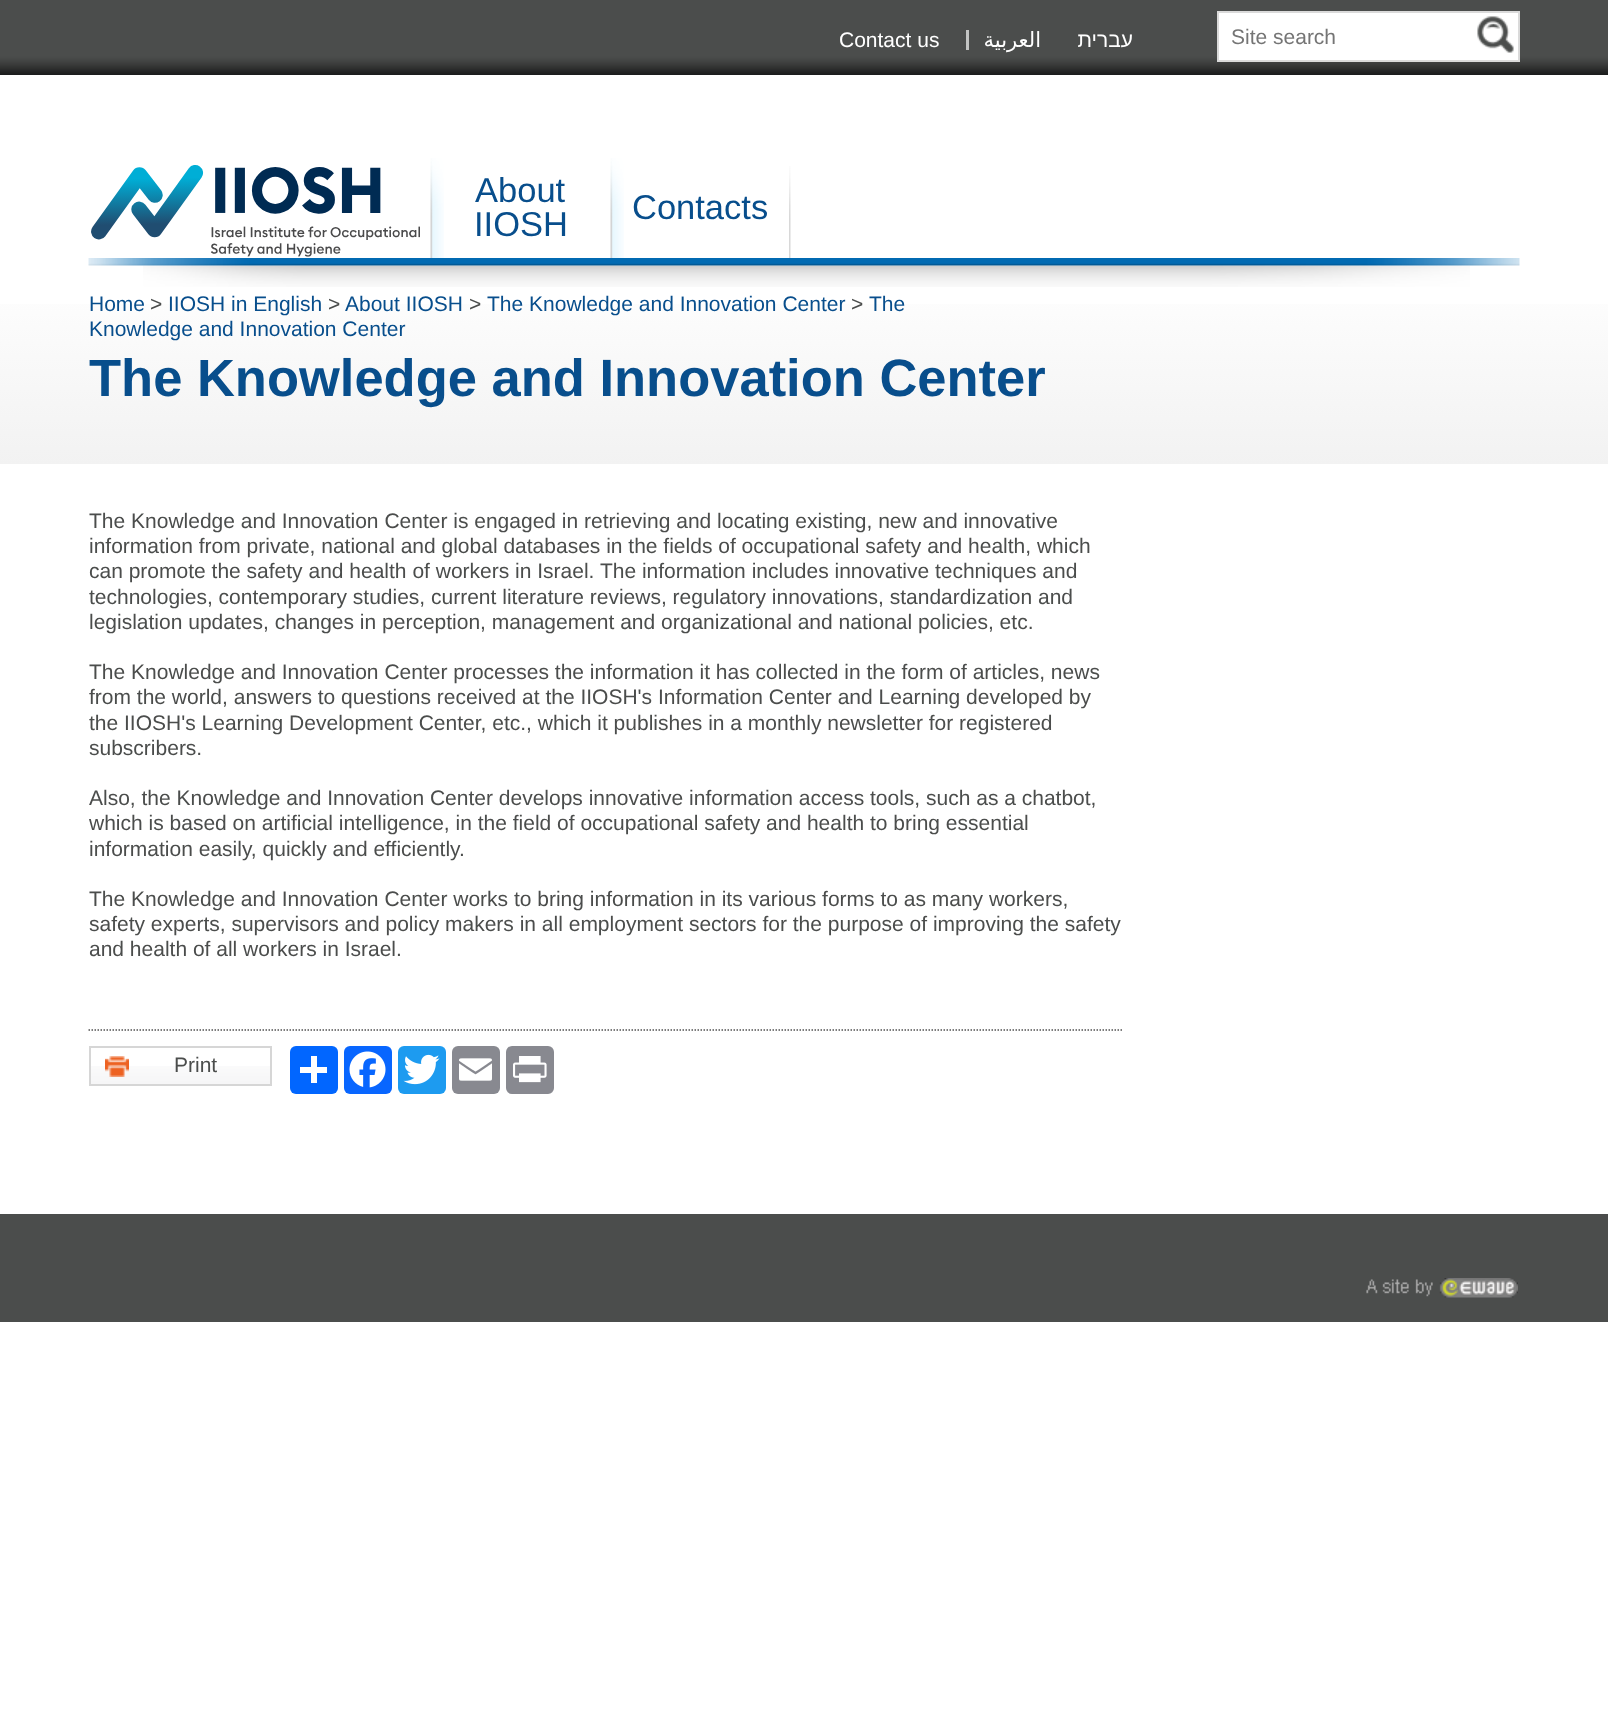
<?xml version="1.0" encoding="UTF-8"?>
<svg xmlns="http://www.w3.org/2000/svg" width="1608" height="1715">
    <defs>
        <linearGradient id="g1" gradientUnits="userSpaceOnUse" x1="804" y1="464" x2="804" y2="266"><stop offset="0" stop-color="#F2F2F2"/><stop offset="1" stop-color="#FFFFFF"/></linearGradient>
    </defs>
    <rect width="100%" height="100%" fill="#FFFFFF"/>
    <image x="0" y="0" width="1608" height="75" href="img_01.png"/>
    <rect x="966" y="30" width="3" height="20" fill="#C3C4C3"/>
    <text x="839" y="47" font-family="Liberation Sans" font-size="21" fill="#FFFFFF">Contact us</text>
    <text x="1041" y="47" font-family="DejaVu Sans" font-size="21" direction="rtl" fill="#FFFFFF">العربية</text>
    <text x="1133" y="47" font-family="Liberation Sans" font-size="21" direction="rtl" fill="#FFFFFF">עברית</text>
    <rect x="1218" y="12" width="301" height="49" fill="#FFFFFF" stroke="#DADADA" stroke-width="2"/>
    <text x="1231" y="44" font-family="Liberation Sans" font-size="21" fill="#757575">Site search</text>
    <image x="1477" y="16" width="37" height="37" href="img_02.png"/>
    <image x="143" y="265" width="1327" height="22" href="img_07.png"/>
    <image x="88" y="258" width="1432" height="8" href="img_03.png"/>
    <image x="91" y="165" width="329" height="92" href="img_04.png"/>
    <image x="789" y="166" width="2" height="92" href="img_05.png"/>
    <image x="430" y="158" width="14" height="100" href="img_06.png"/>
    <text x="475" y="202" font-family="Liberation Sans" font-size="34.5" fill="#084E8C">About</text>
    <text x="474" y="236" font-family="Liberation Sans" font-size="34.5" fill="#084E8C">IIOSH</text>
    <image x="610" y="158" width="14" height="100" href="img_06.png"/>
    <text x="632" y="219" font-family="Liberation Sans" font-size="34.5" fill="#084E8C">Contacts</text>
    <rect x="0" y="304" width="1608" height="160" fill="url(#g1)"/>
    <text x="89" y="311" font-family="Liberation Sans" font-size="21" fill="#084E8C">Home</text>
    <text x="150" y="311" font-family="Liberation Sans" font-size="21" fill="#4B4D4C">&gt;</text>
    <text x="168" y="311" font-family="Liberation Sans" font-size="21" fill="#084E8C">IIOSH in English</text>
    <text x="328" y="311" font-family="Liberation Sans" font-size="21" fill="#4B4D4C">&gt;</text>
    <text x="345" y="311" font-family="Liberation Sans" font-size="21" fill="#084E8C">About IIOSH</text>
    <text x="469" y="311" font-family="Liberation Sans" font-size="21" fill="#4B4D4C">&gt;</text>
    <text x="487" y="311" font-family="Liberation Sans" font-size="21" fill="#084E8C">The Knowledge and Innovation Center</text>
    <text x="851" y="311" font-family="Liberation Sans" font-size="21" fill="#4B4D4C">&gt;</text>
    <text x="869" y="311" font-family="Liberation Sans" font-size="21" fill="#084E8C">The</text>
    <text x="89" y="336" font-family="Liberation Sans" font-size="21" fill="#084E8C">Knowledge and Innovation Center</text>
    <text x="89" y="396" font-family="Liberation Sans" font-size="52.5" font-weight="700" fill="#084E8C">The Knowledge and Innovation Center</text>
    <text font-family="Liberation Sans" font-size="21" fill="#4B4D4C">
        <tspan x="89" y="528">The Knowledge and Innovation Center is engaged in retrieving and locating existing, new and innovative</tspan>
        <tspan x="89" y="553">information from private, national and global databases in the fields of occupational safety and health, which</tspan>
        <tspan x="89" y="578">can promote the safety and health of workers in Israel. The information includes innovative techniques and</tspan>
        <tspan x="89" y="604">technologies, contemporary studies, current literature reviews, regulatory innovations, standardization and</tspan>
        <tspan x="89" y="629">legislation updates, changes in perception, management and organizational and national policies, etc.</tspan>
    </text>
    <text font-family="Liberation Sans" font-size="21" fill="#4B4D4C">
        <tspan x="89" y="679">The Knowledge and Innovation Center processes the information it has collected in the form of articles, news</tspan>
        <tspan x="89" y="704">from the world, answers to questions received at the IIOSH's Information Center and Learning developed by</tspan>
        <tspan x="89" y="730">the IIOSH's Learning Development Center, etc., which it publishes in a monthly newsletter for registered</tspan>
        <tspan x="89" y="755">subscribers.</tspan>
    </text>
    <text font-family="Liberation Sans" font-size="21" fill="#4B4D4C">
        <tspan x="89" y="805">Also, the Knowledge and Innovation Center develops innovative information access tools, such as a chatbot,</tspan>
        <tspan x="89" y="830">which is based on artificial intelligence, in the field of occupational safety and health to bring essential</tspan>
        <tspan x="89" y="856">information easily, quickly and efficiently.</tspan>
    </text>
    <text font-family="Liberation Sans" font-size="21" fill="#4B4D4C">
        <tspan x="89" y="906">The Knowledge and Innovation Center works to bring information in its various forms to as many workers,</tspan>
        <tspan x="89" y="931">safety experts, supervisors and policy makers in all employment sectors for the purpose of improving the safety</tspan>
        <tspan x="89" y="956">and health of all workers in Israel.</tspan>
    </text>
    <path d="M 88.5 1030 H 1123.5" fill="none" stroke="#525252" stroke-width="1.5" stroke-dasharray="1.5 1.5"/>
    <image x="91" y="1066" width="179" height="18" href="img_08.png"/>
    <rect x="90" y="1047" width="181" height="38" fill="none" stroke="#D6D6D6" stroke-width="2"/>
    <image x="105" y="1056" width="24" height="21" href="img_09.png"/>
    <text x="174" y="1072" font-family="Liberation Sans" font-size="21" fill="#4B4D4C">Print</text>
    <rect x="290" y="1046" width="48" height="48" rx="6" fill="#0166FF"/>
    <rect x="311" y="1056" width="6" height="27" fill="#FFFFFF"/>
    <rect x="300" y="1067" width="27" height="6" fill="#FFFFFF"/>
    <rect x="344" y="1046" width="48" height="48" rx="6" fill="#0866FF"/>
    <image x="349" y="1051" width="37" height="37" href="img_10.png"/>
    <rect x="398" y="1046" width="48" height="48" rx="6" fill="#1D9BF0"/>
    <image x="403" y="1054" width="37" height="31" href="img_11.png"/>
    <rect x="452" y="1046" width="48" height="48" rx="6" fill="#888990"/>
    <image x="459" y="1058" width="33" height="23" href="img_12.png"/>
    <rect x="506" y="1046" width="48" height="48" rx="6" fill="#888990"/>
    <image x="513" y="1056" width="34" height="27" href="img_13.png"/>
    <rect x="0" y="1214" width="1608" height="108" fill="#4B4D4C"/>
    <image x="1366" y="1278" width="152" height="20" href="img_14.png"/>
</svg>
